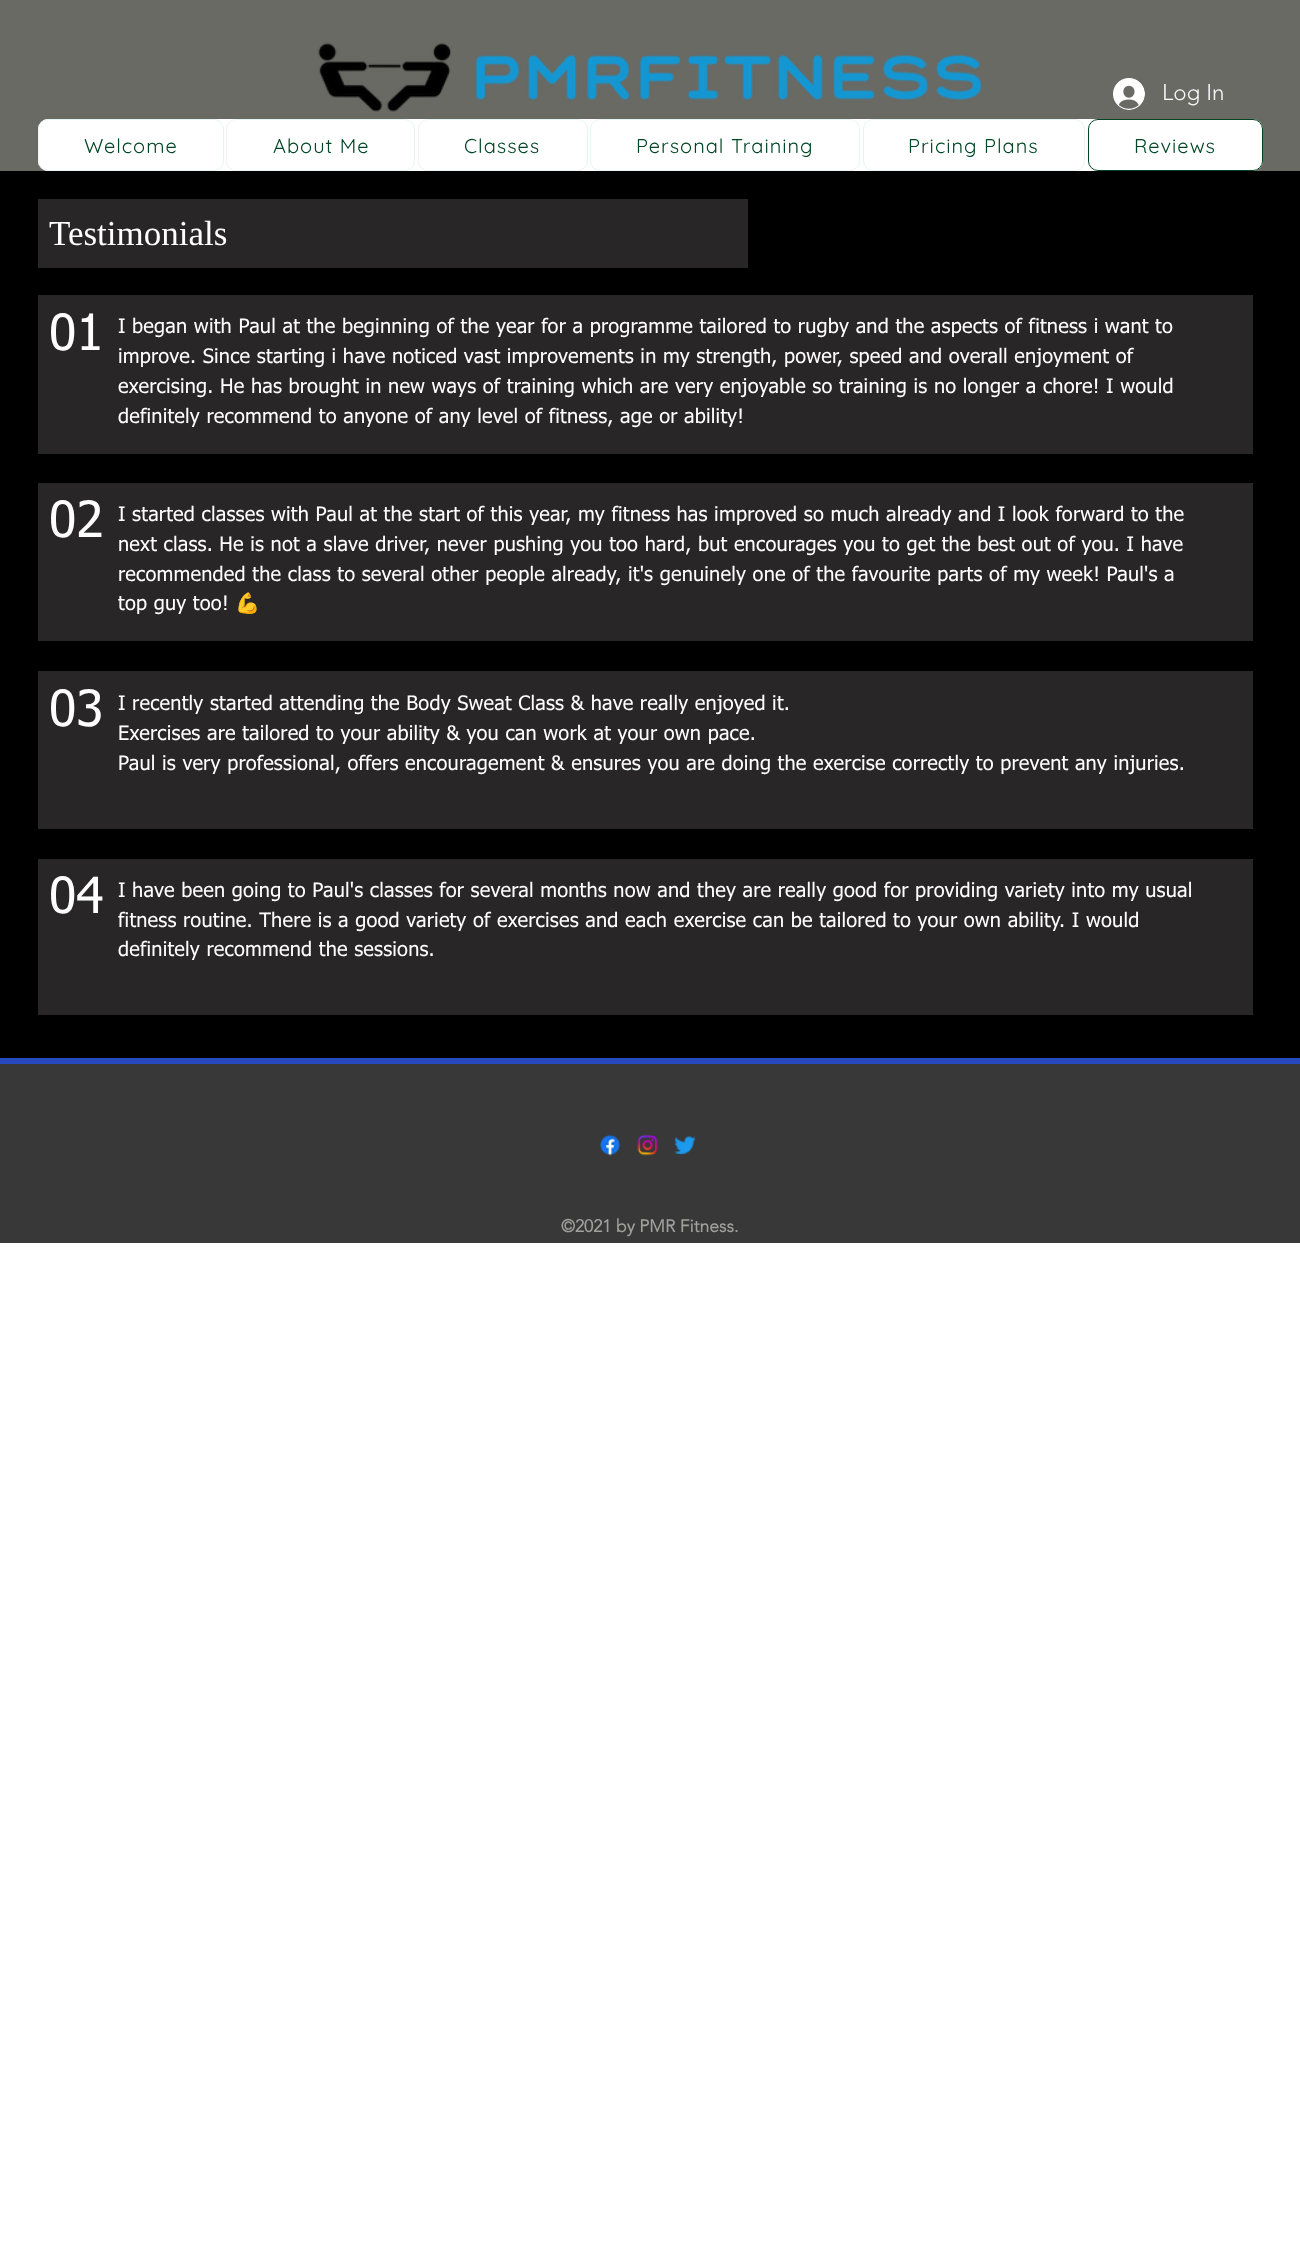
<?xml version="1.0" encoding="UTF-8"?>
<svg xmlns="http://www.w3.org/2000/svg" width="1300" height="2242">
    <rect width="100%" height="100%" fill="#FFFFFF"/>
    <rect x="0" y="0" width="1300" height="171" fill="#6A6A65"/>
    <image x="318" y="42" width="664" height="70" href="img_01.png"/>
    <image x="1113" y="78" width="32" height="32" href="img_02.png"/>
    <text x="1162" y="100" font-family="'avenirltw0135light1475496'" font-size="22.5" font-weight="300" fill="#F8F7F9">Log In</text>
    <rect x="38" y="119" width="1225" height="52" rx="10" fill="#FFFFFF"/>
    <rect x="38.5" y="119.5" width="185" height="51" rx="9.5" fill="none" stroke="#E7F4F6"/>
    <text x="84" y="153" font-family="Quicksand" font-size="20" letter-spacing="1" fill="#004524">Welcome</text>
    <rect x="226.5" y="119.5" width="188" height="51" rx="9.5" fill="none" stroke="#E7F4F6"/>
    <text x="273" y="153" font-family="Quicksand" font-size="20" letter-spacing="1" fill="#004524">About Me</text>
    <rect x="418.5" y="119.5" width="169" height="51" rx="9.5" fill="none" stroke="#E7F4F6"/>
    <text x="464" y="153" font-family="Quicksand" font-size="20" letter-spacing="1" fill="#004524">Classes</text>
    <rect x="590.5" y="119.5" width="269" height="51" rx="9.5" fill="none" stroke="#E7F4F6"/>
    <text x="636" y="153" font-family="Quicksand" font-size="20" letter-spacing="1" fill="#004524">Personal Training</text>
    <rect x="863.5" y="119.5" width="221" height="51" rx="9.5" fill="none" stroke="#E7F4F6"/>
    <text x="908" y="153" font-family="Quicksand" font-size="20" letter-spacing="1" fill="#004524">Pricing Plans</text>
    <rect x="1088.5" y="119.5" width="174" height="51" rx="9.5" fill="#FFFFFF" stroke="#004524"/>
    <text x="1134" y="153" font-family="Quicksand" font-size="20" letter-spacing="1" fill="#004524">Reviews</text>
    <rect x="0" y="171" width="1300" height="887" fill="#000000"/>
    <rect x="38" y="199" width="710" height="69" fill="#282626"/>
    <text x="49" y="245" font-family="Liberation Serif" font-size="35" fill="#FFFFFF">Testimonials</text>
    <rect x="38" y="295" width="1215" height="159" fill="#282626"/>
    <text x="49" y="350" font-family="tahoma" font-size="50" fill="#FFFFFF">01</text>
    <text font-family="tahoma" font-size="20" letter-spacing="0.2" fill="#FFFFFF">
        <tspan x="118" y="333">I began with Paul at the beginning of the year for a programme tailored to rugby and the aspects of fitness i want to</tspan>
        <tspan x="118" y="363">improve. Since starting i have noticed vast improvements in my strength, power, speed and overall enjoyment of</tspan>
        <tspan x="118" y="393">exercising. He has brought in new ways of training which are very enjoyable so training is no longer a chore! I would</tspan>
        <tspan x="118" y="423">definitely recommend to anyone of any level of fitness, age or ability!</tspan>
    </text>
    <rect x="38" y="483" width="1215" height="158" fill="#282626"/>
    <text x="49" y="537" font-family="tahoma" font-size="50" fill="#FFFFFF">02</text>
    <text font-family="tahoma" font-size="20" letter-spacing="0.2" fill="#FFFFFF">
        <tspan x="118" y="521">I started classes with Paul at the start of this year, my fitness has improved so much already and I look forward to the</tspan>
        <tspan x="118" y="551">next class. He is not a slave driver, never pushing you too hard, but encourages you to get the best out of you. I have</tspan>
        <tspan x="118" y="581">recommended the class to several other people already, it's genuinely one of the favourite parts of my week! Paul's a</tspan>
        <tspan x="118" y="610">top guy too!</tspan>
    </text>
    <text x="235" y="610" font-family="Noto Color Emoji" font-size="20" letter-spacing="0.2" fill="#FFFFFF">💪</text>
    <rect x="38" y="671" width="1215" height="158" fill="#282626"/>
    <text x="49" y="726" font-family="tahoma" font-size="50" fill="#FFFFFF">03</text>
    <text font-family="tahoma" font-size="20" letter-spacing="0.2" fill="#FFFFFF">
        <tspan x="118" y="710">I recently started attending the Body Sweat Class &amp; have really enjoyed it.</tspan>
        <tspan x="118" y="740">Exercises are tailored to your ability &amp; you can work at your own pace.</tspan>
        <tspan x="118" y="770">Paul is very professional, offers encouragement &amp; ensures you are doing the exercise correctly to prevent any injuries.</tspan>
    </text>
    <rect x="38" y="859" width="1215" height="156" fill="#282626"/>
    <text x="49" y="913" font-family="tahoma" font-size="50" fill="#FFFFFF">04</text>
    <text font-family="tahoma" font-size="20" letter-spacing="0.2" fill="#FFFFFF">
        <tspan x="118" y="897">I have been going to Paul's classes for several months now and they are really good for providing variety into my usual</tspan>
        <tspan x="118" y="927">fitness routine. There is a good variety of exercises and each exercise can be tailored to your own ability. I would</tspan>
        <tspan x="118" y="956">definitely recommend the sessions.</tspan>
    </text>
    <rect x="0" y="1064" width="1300" height="179" fill="#383838"/>
    <rect x="0" y="1058" width="1300" height="6" fill="#2649BE"/>
    <image x="599" y="1134" width="22" height="22" href="img_03.png"/>
    <image x="637" y="1134" width="21" height="22" href="img_04.png"/>
    <image x="674" y="1136" width="23" height="19" href="img_05.png"/>
    <text x="561" y="1232" font-family="'avenirltw0135light1475496'" font-size="17.5" font-weight="700" fill="#A0A09F">©2021 by PMR Fitness.</text>
</svg>
